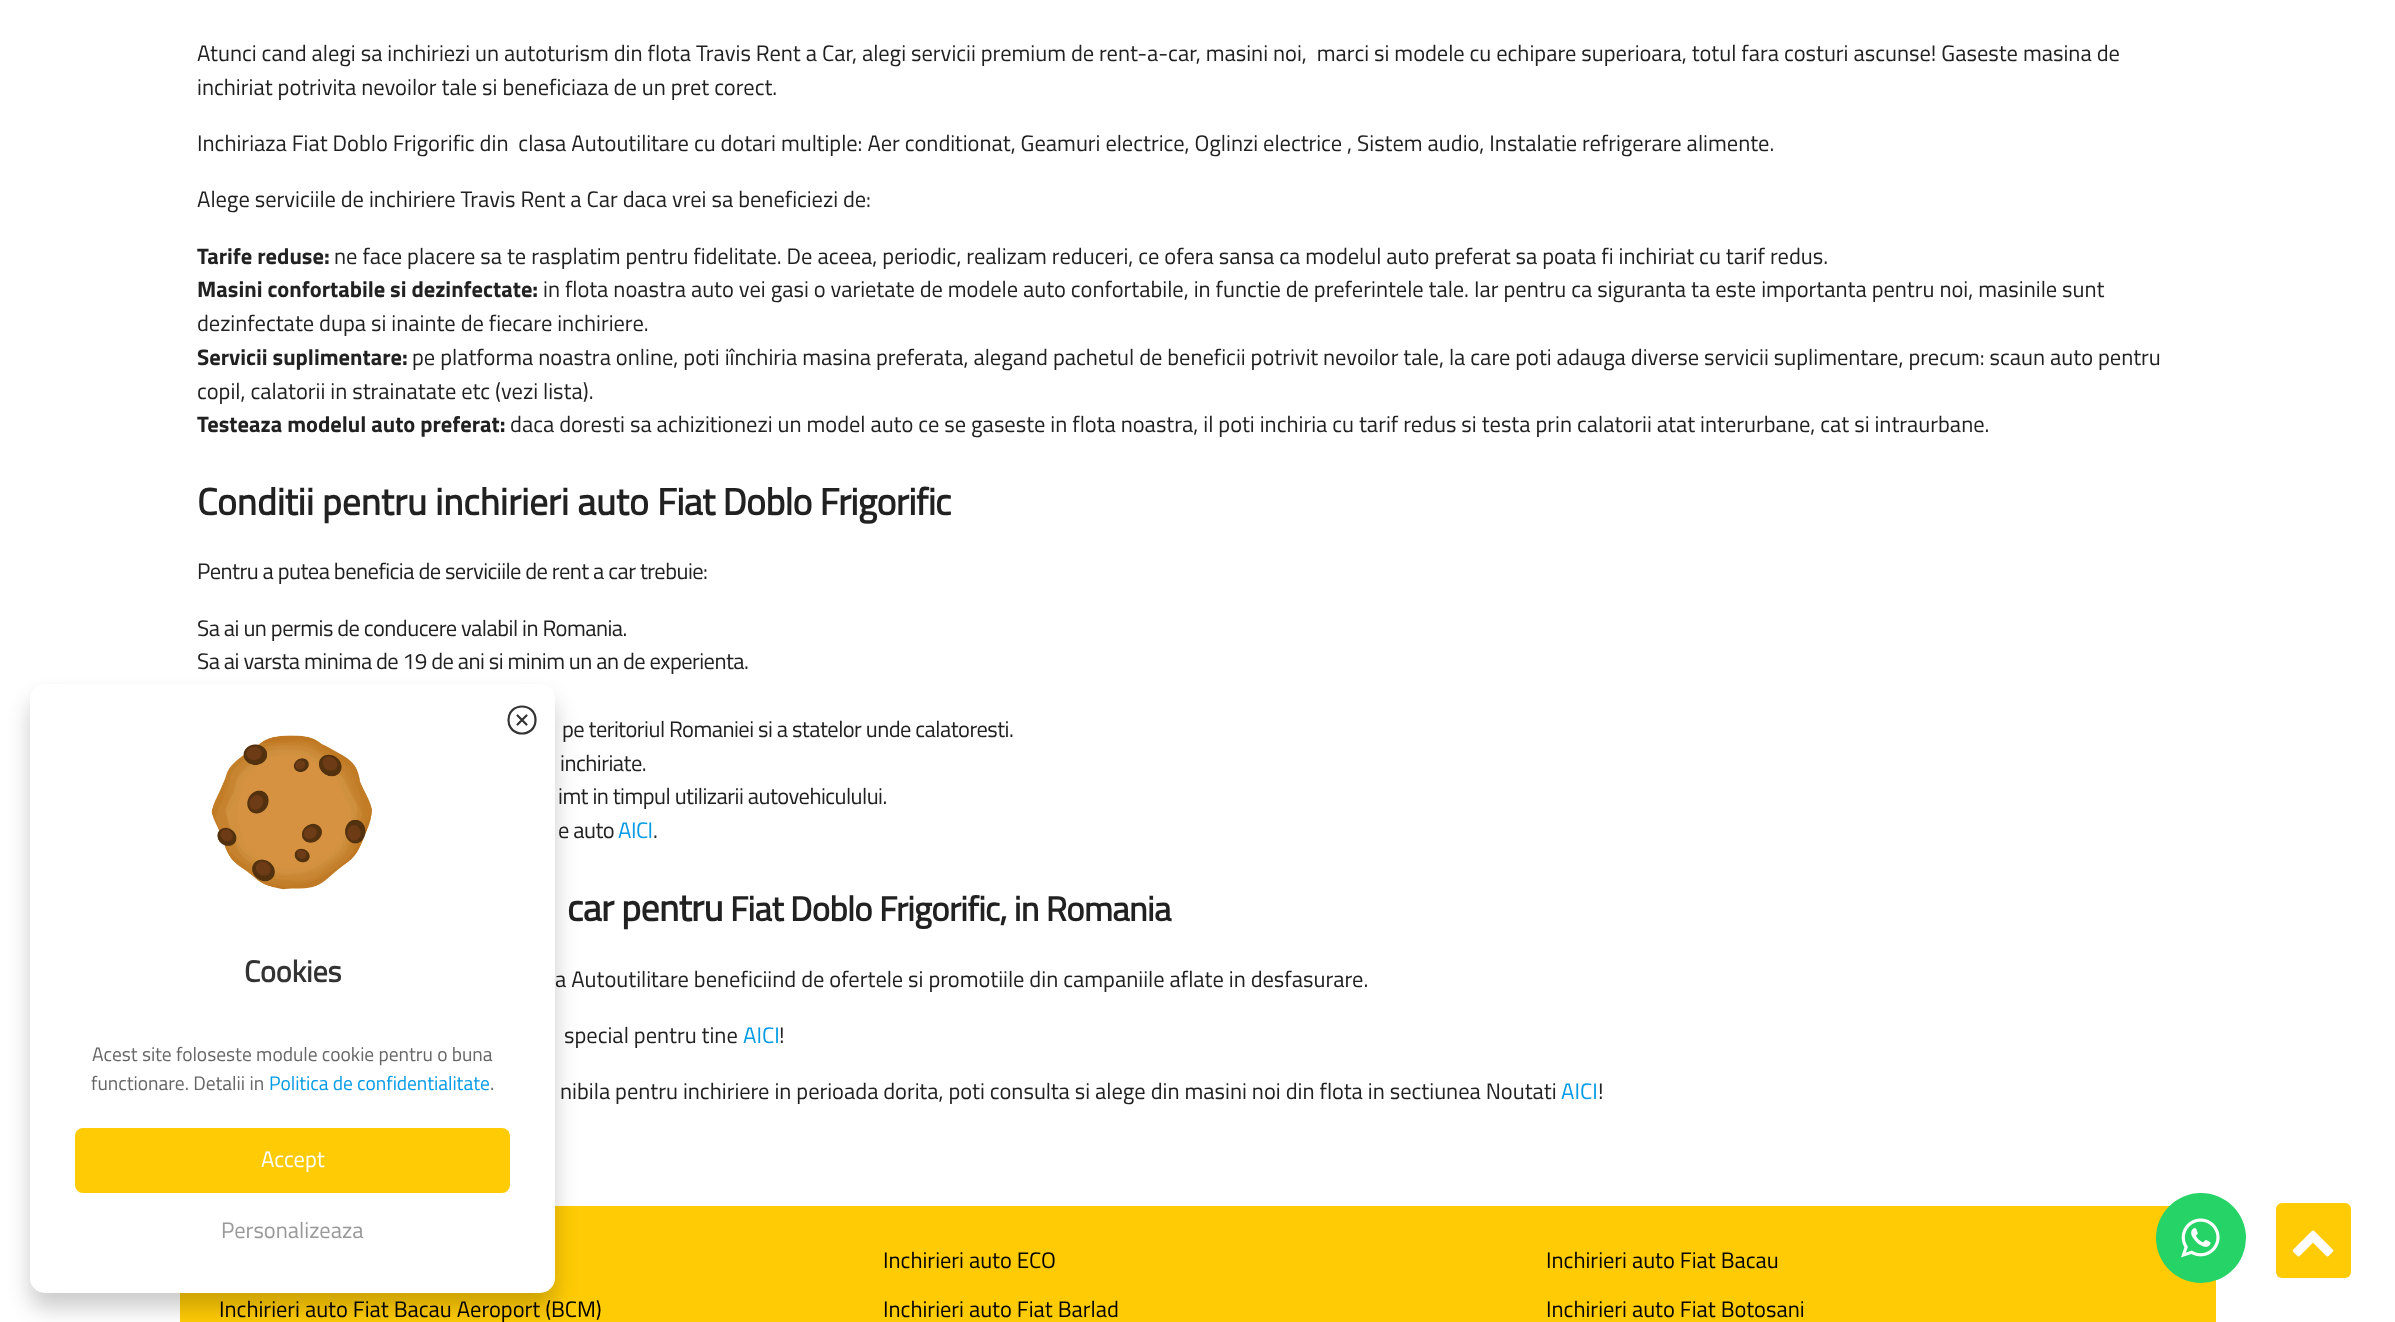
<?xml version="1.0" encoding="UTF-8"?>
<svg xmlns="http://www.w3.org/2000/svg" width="2395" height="1322">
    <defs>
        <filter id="blur1" x="-50%" y="-200%" width="200%" height="500%"><feGaussianBlur stdDeviation="11"/></filter>
    </defs>
    <rect width="100%" height="100%" fill="#FFFFFF"/>
    <text font-family="Cairo" font-size="22.5" fill="#212121" xml:space="preserve"><tspan x="197" y="61">Atunci cand alegi sa inchiriezi un autoturism din flota Travis Rent a Car, alegi servicii premium de rent-a-car, masini noi,  marci si modele cu echipare superioara, totul fara costuri ascunse! Gaseste masina de</tspan><tspan x="197" y="95">inchiriat potrivita nevoilor tale si beneficiaza de un pret corect.</tspan></text>
    <text x="197" y="151" font-family="Cairo" font-size="22.5" fill="#212121" xml:space="preserve">Inchiriaza Fiat Doblo Frigorific din  clasa Autoutilitare cu dotari multiple: Aer conditionat, Geamuri electrice, Oglinzi electrice , Sistem audio, Instalatie refrigerare alimente.</text>
    <text x="197" y="207" font-family="Cairo" font-size="22.5" fill="#212121">Alege serviciile de inchiriere Travis Rent a Car daca vrei sa beneficiezi de:</text>
    <text x="197" y="264" font-family="Cairo" font-size="22.5" font-weight="700" fill="#212121">Tarife reduse:</text>
    <text x="334" y="264" font-family="Cairo" font-size="22.5" fill="#212121">ne face placere sa te rasplatim pentru fidelitate. De aceea, periodic, realizam reduceri, ce ofera sansa ca modelul auto preferat sa poata fi inchiriat cu tarif redus.</text>
    <text x="197" y="297" font-family="Cairo" font-size="22.5" font-weight="700" fill="#212121">Masini confortabile si dezinfectate:</text>
    <text x="543" y="297" font-family="Cairo" font-size="22.5" fill="#212121">in flota noastra auto vei gasi o varietate de modele auto confortabile, in functie de preferintele tale. Iar pentru ca siguranta ta este importanta pentru noi, masinile sunt</text>
    <text x="197" y="331" font-family="Cairo" font-size="22.5" fill="#212121">dezinfectate dupa si inainte de fiecare inchiriere.</text>
    <text x="197" y="365" font-family="Cairo" font-size="22.5" font-weight="700" fill="#212121">Servicii suplimentare:</text>
    <text x="412" y="365" font-family="Cairo" font-size="22.5" fill="#212121">pe platforma noastra online, poti iînchiria masina preferata, alegand pachetul de beneficii potrivit nevoilor tale, la care poti adauga diverse servicii suplimentare, precum: scaun auto pentru</text>
    <text x="197" y="399" font-family="Cairo" font-size="22.5" fill="#212121">copil, calatorii in strainatate etc (vezi lista).</text>
    <text x="197" y="432" font-family="Cairo" font-size="22.5" font-weight="700" fill="#212121">Testeaza modelul auto preferat:</text>
    <text x="510" y="432" font-family="Cairo" font-size="22.5" fill="#212121">daca doresti sa achizitionezi un model auto ce se gaseste in flota noastra, il poti inchiria cu tarif redus si testa prin calatorii atat interurbane, cat si intraurbane.</text>
    <text x="197" y="515" font-family="'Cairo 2'" font-size="37.5" font-weight="700" fill="#212121">Conditii pentru inchirieri auto</text>
    <text x="657" y="515" font-family="'Cairo 2'" font-size="37.5" font-weight="700" letter-spacing="-0.52" fill="#212121">Fiat Doblo Frigorific</text>
    <text x="197" y="579" font-family="Cairo" font-size="22.5" letter-spacing="-0.52" fill="#212121">Pentru a putea beneficia de serviciile de rent a car trebuie:</text>
    <text font-family="Cairo" font-size="22.5" letter-spacing="-0.52" fill="#212121">
        <tspan x="197" y="636">Sa ai un permis de conducere valabil in Romania.</tspan>
        <tspan x="197" y="669">Sa ai varsta minima de 19 de ani si minim un an de experienta.</tspan>
    </text>
    <text x="562" y="737" font-family="Cairo" font-size="22.5" letter-spacing="-0.52" fill="#212121">pe teritoriul Romaniei si a statelor unde calatoresti.</text>
    <text x="560" y="771" font-family="Cairo" font-size="22.5" letter-spacing="-0.52" fill="#212121">inchiriate.</text>
    <text font-family="Cairo" font-size="22.5" letter-spacing="-0.52" fill="#212121">
        <tspan x="558" y="804">imt in timpul utilizarii autovehiculului.</tspan>
        <tspan x="558" y="838">e auto</tspan>
    </text>
    <text x="618" y="838" font-family="Cairo" font-size="22.5" letter-spacing="-0.52" fill="#039BE5">AICI</text>
    <text x="653" y="838" font-family="Cairo" font-size="22.5" letter-spacing="-0.52" fill="#212121">.</text>
    <text x="567" y="921" font-family="'Cairo 2'" font-size="37.5" font-weight="700" letter-spacing="-0.52" fill="#212121">car pentru</text>
    <text x="730" y="921" font-family="'Cairo 2'" font-size="34.5" font-weight="700" letter-spacing="-0.52" fill="#212121">Fiat Doblo Frigorific, in Romania</text>
    <text x="555" y="987" font-family="Cairo" font-size="22.5" fill="#212121">a Autoutilitare beneficiind de ofertele si promotiile din campaniile aflate in desfasurare.</text>
    <text x="564" y="1043" font-family="Cairo" font-size="22.5" fill="#212121">special pentru tine</text>
    <text x="743" y="1043" font-family="Cairo" font-size="22.5" fill="#039BE5">AICI</text>
    <text x="779" y="1043" font-family="Cairo" font-size="22.5" fill="#212121">!</text>
    <text x="560" y="1099" font-family="Cairo" font-size="22.5" fill="#212121">nibila pentru inchiriere in perioada dorita, poti consulta si alege din masini noi din flota in sectiunea Noutati</text>
    <text x="1561" y="1099" font-family="Cairo" font-size="22.5" fill="#039BE5">AICI</text>
    <text x="1598" y="1099" font-family="Cairo" font-size="22.5" fill="#212121">!</text>
    <rect x="180" y="1206" width="2036" height="116" fill="#FFCB05"/>
    <rect x="30" y="699" width="525" height="609" rx="15" fill="#000000" fill-opacity="0.2" filter="url(#blur1)"/>
    <rect x="30" y="684" width="525" height="609" rx="15" fill="#FFFFFF"/>
    <path d="M 535.5 720 C 535.5 702 508.5 702 508.5 720 C 508.5 738 535.5 738 535.5 720 Z" fill="none" stroke="#333333" stroke-width="2.2"/>
    <path d="M 526.5 724.5 L 517.5 715.5 M 517.5 724.5 L 526.5 715.5" fill="none" stroke="#333333" stroke-width="2.2" stroke-linecap="round" stroke-linejoin="round"/>
    <image x="211" y="735" width="162" height="155" href="img_01.png"/>
    <text x="244" y="982" font-family="'Cairo 2'" font-size="30" font-weight="700" fill="#333333">Cookies</text>
    <text x="92" y="1061" font-family="Cairo" font-size="19.5" fill="#666666">Acest site foloseste module cookie pentru o buna</text>
    <text x="91" y="1090" font-family="Cairo" font-size="19.5" fill="#666666">functionare. Detalii in</text>
    <text x="269" y="1090" font-family="Cairo" font-size="19.5" fill="#039BE5">Politica de confidentialitate</text>
    <text x="490" y="1090" font-family="Cairo" font-size="19.5" fill="#666666">.</text>
    <rect x="75" y="1128" width="435" height="65" rx="8" fill="#FFCB05"/>
    <text x="261" y="1167" font-family="Cairo" font-size="22.5" fill="#FFFFFF">Accept</text>
    <text x="221" y="1238" font-family="Cairo" font-size="22.5" fill="#999999">Personalizeaza</text>
    <circle cx="2201" cy="1238" r="45" fill="#25D366"/>
    <image x="2181" y="1218" width="39" height="40" href="img_02.png"/>
    <rect x="2276" y="1203" width="75" height="75" rx="6" fill="#FFCB05"/>
    <image x="2292" y="1230" width="42" height="27" href="img_03.png"/>
    <text x="883" y="1268" font-family="Cairo" font-size="22.5" fill="#000000">Inchirieri auto ECO</text>
    <text x="1546" y="1268" font-family="Cairo" font-size="22.5" fill="#000000">Inchirieri auto Fiat Bacau</text>
    <text x="219" y="1317" font-family="Cairo" font-size="22.5" fill="#000000">Inchirieri auto Fiat Bacau Aeroport (BCM)</text>
    <text x="883" y="1317" font-family="Cairo" font-size="22.5" fill="#000000">Inchirieri auto Fiat Barlad</text>
    <text x="1546" y="1317" font-family="Cairo" font-size="22.5" fill="#000000">Inchirieri auto Fiat Botosani</text>
</svg>
